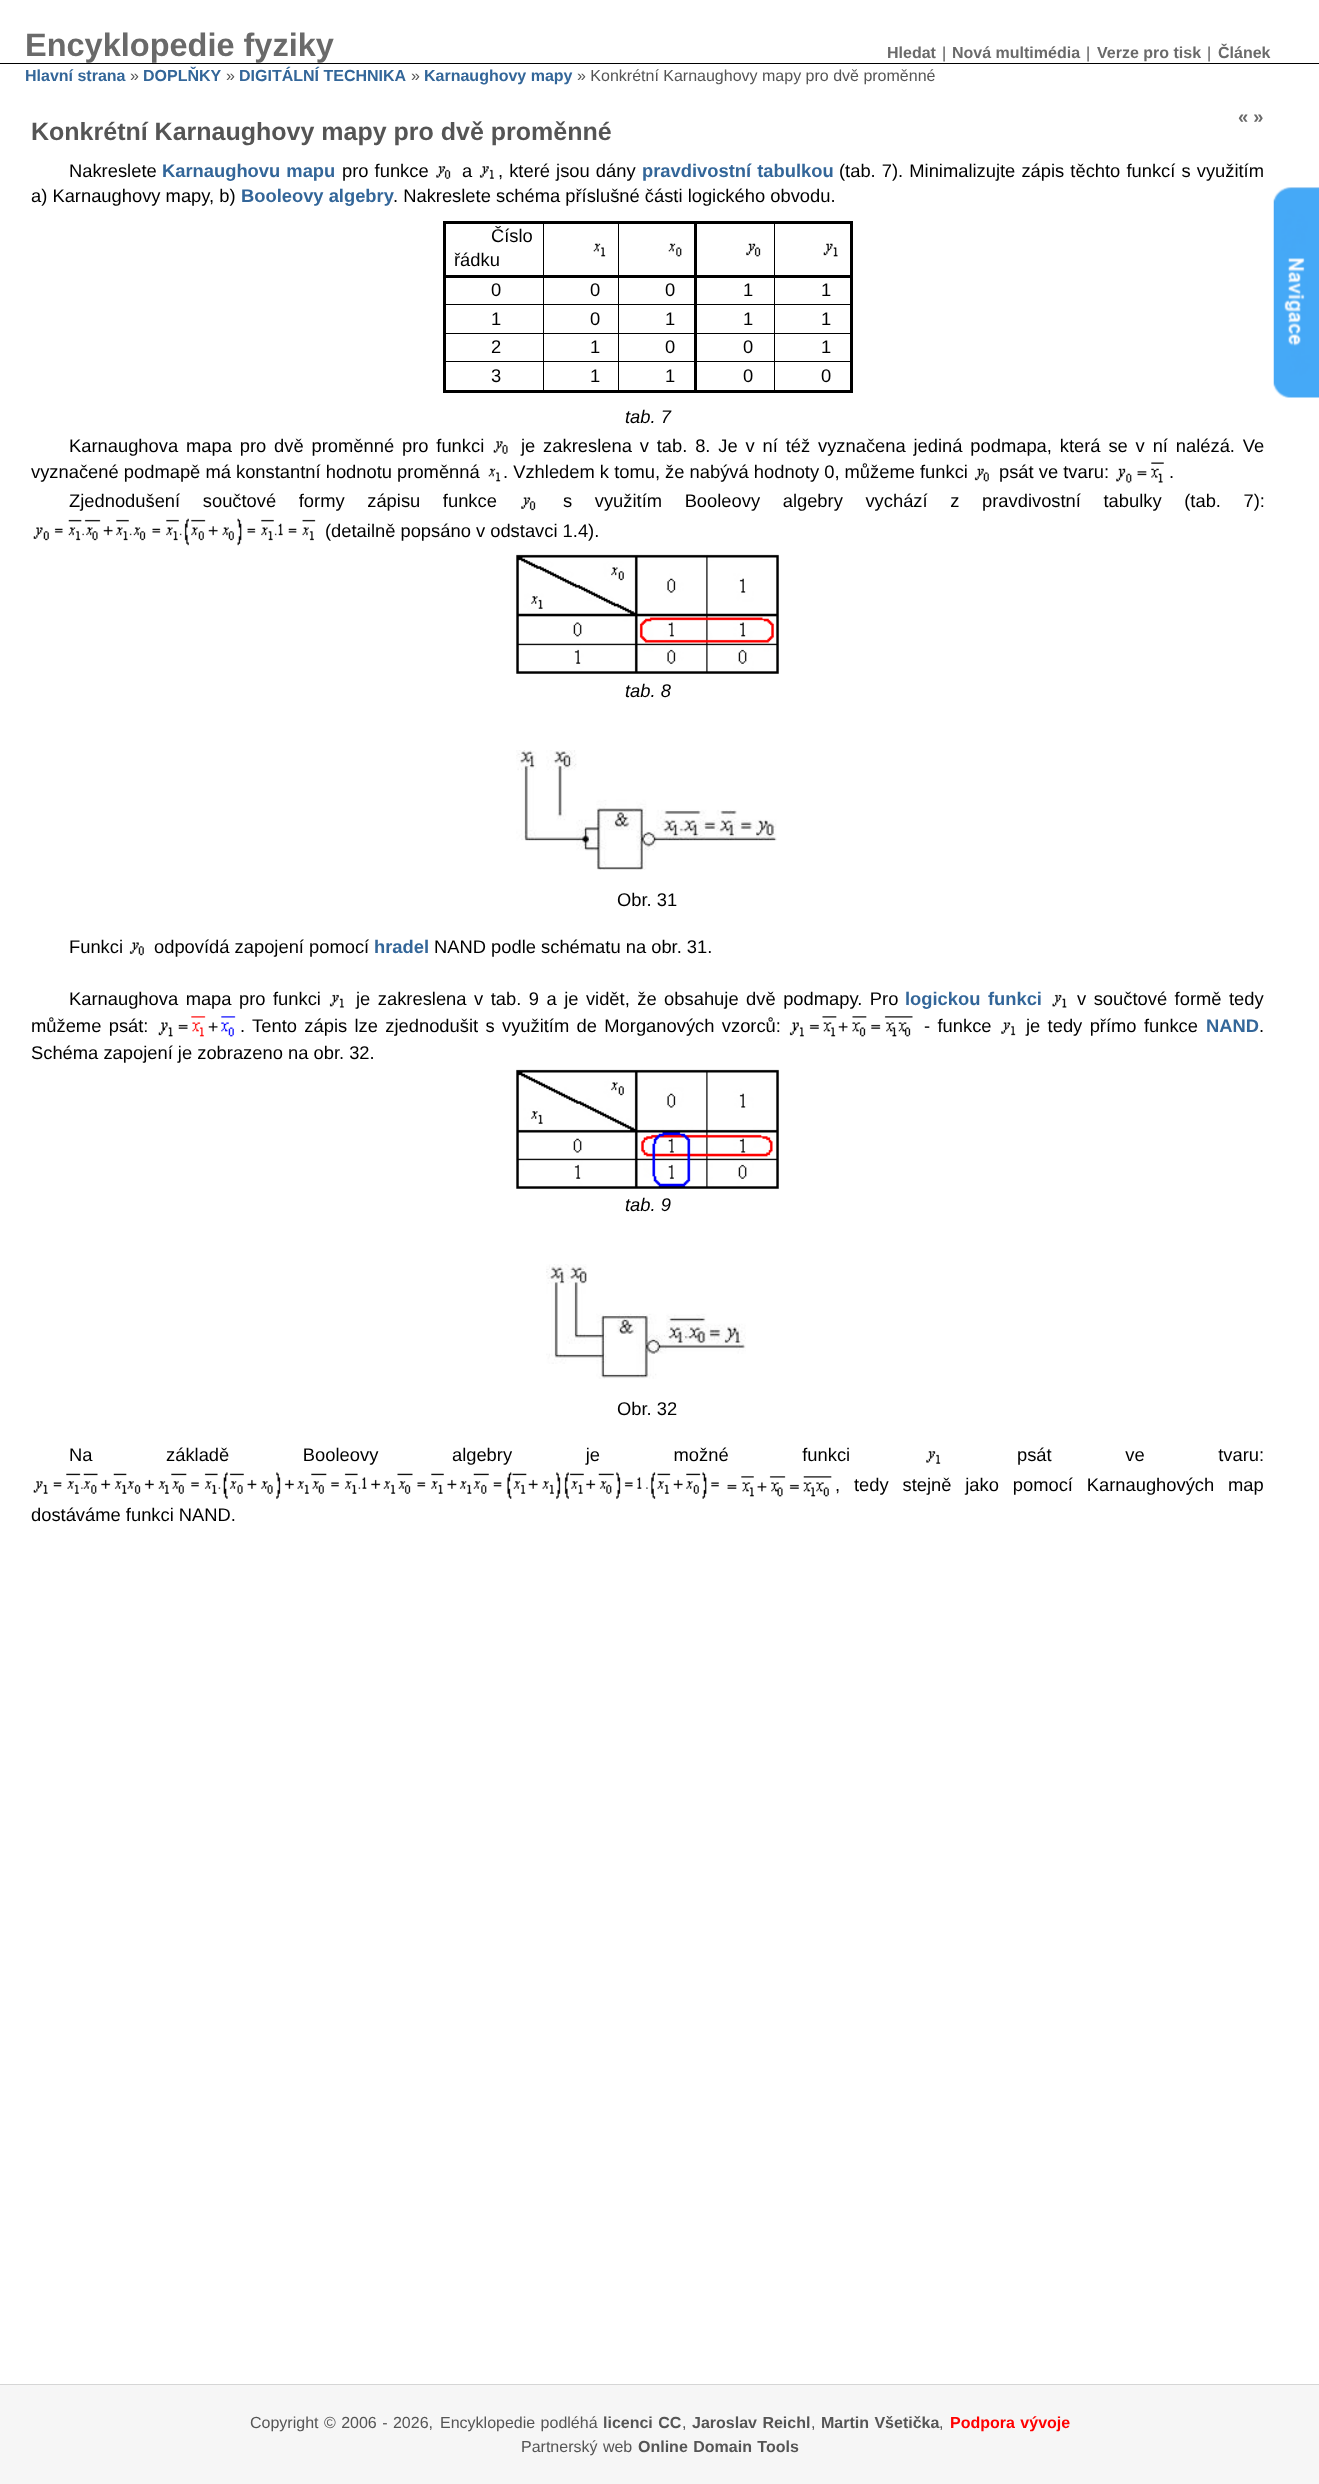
<?xml version="1.0" encoding="UTF-8"?>
<svg xmlns="http://www.w3.org/2000/svg" width="1319" height="2484">
    <rect width="100%" height="100%" fill="#FFFFFF"/>
    <rect x="0" y="63" width="1319" height="1" fill="#000000"/>
    <text x="25" y="56" font-family="Liberation Sans" font-size="32.5" font-weight="700" fill="#6A6A6A">Encyklopedie fyziky</text>
    <text x="887" y="58" font-family="Liberation Sans" font-size="16" font-weight="700" fill="#6A6A6A">Hledat</text>
    <text x="942" y="58" font-family="Liberation Sans" font-size="16" fill="#555555">|</text>
    <text x="952" y="58" font-family="Liberation Sans" font-size="16" font-weight="700" fill="#6A6A6A">Nová multimédia</text>
    <text x="1086" y="58" font-family="Liberation Sans" font-size="16" fill="#555555">|</text>
    <text x="1097" y="58" font-family="Liberation Sans" font-size="16" font-weight="700" fill="#6A6A6A">Verze pro tisk</text>
    <text x="1207" y="58" font-family="Liberation Sans" font-size="16" fill="#555555">|</text>
    <text x="1218" y="58" font-family="Liberation Sans" font-size="16" font-weight="700" fill="#6A6A6A">Článek</text>
    <text x="25" y="81" font-family="Liberation Sans" font-size="16" font-weight="700" fill="#336699">Hlavní strana</text>
    <text x="130" y="81" font-family="Liberation Sans" font-size="16" fill="#555555">»</text>
    <text x="143" y="81" font-family="Liberation Sans" font-size="16" font-weight="700" fill="#336699">DOPLŇKY</text>
    <text x="226" y="81" font-family="Liberation Sans" font-size="16" fill="#555555">»</text>
    <text x="239" y="81" font-family="Liberation Sans" font-size="16" font-weight="700" fill="#336699">DIGITÁLNÍ TECHNIKA</text>
    <text x="411" y="81" font-family="Liberation Sans" font-size="16" fill="#555555">»</text>
    <text x="424" y="81" font-family="Liberation Sans" font-size="16" font-weight="700" fill="#336699">Karnaughovy mapy</text>
    <text x="577" y="81" font-family="Liberation Sans" font-size="16" fill="#555555">» Konkrétní Karnaughovy mapy pro dvě proměnné</text>
    <text x="1238" y="123" font-family="Liberation Sans" font-size="18.35" font-weight="700" fill="#6A6A6A">« »</text>
    <text x="31" y="140" font-family="Liberation Sans" font-size="25" font-weight="700" fill="#555555">Konkrétní Karnaughovy mapy pro dvě proměnné</text>
    <text x="69" y="177" font-family="Liberation Sans" font-size="18.35" fill="#000000">Nakreslete</text>
    <text x="162" y="177" word-spacing="1" font-family="Liberation Sans" font-size="18.35" font-weight="700" fill="#336699">Karnaughovu mapu</text>
    <text x="342" y="177" word-spacing="1" font-family="Liberation Sans" font-size="18.35" fill="#000000">pro funkce</text>
    <image x="436" y="166" width="15" height="13" href="img_01.png"/>
    <text x="462" y="177" font-family="Liberation Sans" font-size="18.35" fill="#000000">a</text>
    <image x="479" y="166" width="15" height="13" href="img_02.png"/>
    <text x="498" y="177" word-spacing="1" font-family="Liberation Sans" font-size="18.35" fill="#000000">, které jsou dány</text>
    <text x="642" y="177" word-spacing="1" font-family="Liberation Sans" font-size="18.35" font-weight="700" fill="#336699">pravdivostní tabulkou</text>
    <text x="839" y="177" word-spacing="1" font-family="Liberation Sans" font-size="18.35" fill="#000000">(tab. 7). Minimalizujte zápis těchto funkcí s využitím</text>
    <text x="31" y="202" font-family="Liberation Sans" font-size="18.35" fill="#000000">a) Karnaughovy mapy, b)</text>
    <text x="241" y="202" font-family="Liberation Sans" font-size="18.35" font-weight="700" fill="#336699">Booleovy algebry</text>
    <text x="393" y="202" font-family="Liberation Sans" font-size="18.35" fill="#000000">. Nakreslete schéma příslušné části logického obvodu.</text>
    <rect x="774" y="361" width="1" height="32" fill="#000000"/>
    <rect x="774" y="361" width="79" height="1" fill="#000000"/>
    <rect x="774" y="333" width="1" height="30" fill="#000000"/>
    <rect x="774" y="333" width="79" height="1" fill="#000000"/>
    <rect x="774" y="304" width="1" height="30" fill="#000000"/>
    <rect x="774" y="304" width="79" height="1" fill="#000000"/>
    <rect x="774" y="221" width="1" height="84" fill="#000000"/>
    <rect x="618" y="361" width="1" height="32" fill="#000000"/>
    <rect x="618" y="361" width="157" height="1" fill="#000000"/>
    <rect x="618" y="333" width="1" height="30" fill="#000000"/>
    <rect x="618" y="333" width="157" height="1" fill="#000000"/>
    <rect x="618" y="304" width="1" height="30" fill="#000000"/>
    <rect x="618" y="304" width="157" height="1" fill="#000000"/>
    <rect x="618" y="221" width="1" height="84" fill="#000000"/>
    <rect x="543" y="361" width="1" height="32" fill="#000000"/>
    <rect x="543" y="361" width="76" height="1" fill="#000000"/>
    <rect x="543" y="333" width="1" height="30" fill="#000000"/>
    <rect x="543" y="333" width="76" height="1" fill="#000000"/>
    <rect x="543" y="304" width="1" height="30" fill="#000000"/>
    <rect x="543" y="304" width="76" height="1" fill="#000000"/>
    <rect x="543" y="221" width="1" height="84" fill="#000000"/>
    <rect x="443" y="221" width="410" height="3" fill="#000000"/>
    <rect x="850" y="275" width="3" height="118" fill="#000000"/>
    <rect x="850" y="221" width="3" height="57" fill="#000000"/>
    <rect x="694" y="390" width="159" height="3" fill="#000000"/>
    <rect x="694" y="275" width="3" height="118" fill="#000000"/>
    <rect x="694" y="275" width="159" height="3" fill="#000000"/>
    <image x="823" y="243" width="15" height="14" href="img_03.png"/>
    <rect x="694" y="221" width="3" height="57" fill="#000000"/>
    <rect x="443" y="304" width="101" height="1" fill="#000000"/>
    <rect x="443" y="333" width="101" height="1" fill="#000000"/>
    <rect x="443" y="361" width="101" height="1" fill="#000000"/>
    <rect x="443" y="390" width="253" height="3" fill="#000000"/>
    <rect x="443" y="275" width="3" height="118" fill="#000000"/>
    <rect x="443" y="275" width="253" height="3" fill="#000000"/>
    <image x="668" y="243" width="14" height="14" href="img_04.png"/>
    <rect x="443" y="221" width="3" height="57" fill="#000000"/>
    <text x="491" y="242" font-family="Liberation Sans" font-size="18.35" fill="#000000">Číslo</text>
    <text x="454" y="266" font-family="Liberation Sans" font-size="18.35" fill="#000000">řádku</text>
    <image x="593" y="243" width="13" height="14" href="img_05.png"/>
    <image x="746" y="243" width="15" height="14" href="img_06.png"/>
    <text x="491" y="296" font-family="Liberation Sans" font-size="18.35" fill="#000000">0</text>
    <text x="590" y="296" font-family="Liberation Sans" font-size="18.35" fill="#000000">0</text>
    <text x="665" y="296" font-family="Liberation Sans" font-size="18.35" fill="#000000">0</text>
    <text x="743" y="296" font-family="Liberation Sans" font-size="18.35" fill="#000000">1</text>
    <text x="821" y="296" font-family="Liberation Sans" font-size="18.35" fill="#000000">1</text>
    <text x="491" y="325" font-family="Liberation Sans" font-size="18.35" fill="#000000">1</text>
    <text x="590" y="325" font-family="Liberation Sans" font-size="18.35" fill="#000000">0</text>
    <text x="665" y="325" font-family="Liberation Sans" font-size="18.35" fill="#000000">1</text>
    <text x="743" y="325" font-family="Liberation Sans" font-size="18.35" fill="#000000">1</text>
    <text x="821" y="325" font-family="Liberation Sans" font-size="18.35" fill="#000000">1</text>
    <text x="491" y="353" font-family="Liberation Sans" font-size="18.35" fill="#000000">2</text>
    <text x="590" y="353" font-family="Liberation Sans" font-size="18.35" fill="#000000">1</text>
    <text x="665" y="353" font-family="Liberation Sans" font-size="18.35" fill="#000000">0</text>
    <text x="743" y="353" font-family="Liberation Sans" font-size="18.35" fill="#000000">0</text>
    <text x="821" y="353" font-family="Liberation Sans" font-size="18.35" fill="#000000">1</text>
    <text x="491" y="382" font-family="Liberation Sans" font-size="18.35" fill="#000000">3</text>
    <text x="590" y="382" font-family="Liberation Sans" font-size="18.35" fill="#000000">1</text>
    <text x="665" y="382" font-family="Liberation Sans" font-size="18.35" fill="#000000">1</text>
    <text x="743" y="382" font-family="Liberation Sans" font-size="18.35" fill="#000000">0</text>
    <text x="821" y="382" font-family="Liberation Sans" font-size="18.35" fill="#000000">0</text>
    <text x="625" y="423" font-family="Liberation Sans" font-size="18.35" font-style="italic" fill="#000000">tab. 7</text>
    <text x="69" y="452" word-spacing="2.75" font-family="Liberation Sans" font-size="18.35" fill="#000000">Karnaughova mapa pro dvě proměnné pro funkci</text>
    <image x="493" y="441" width="15" height="13" href="img_07.png"/>
    <text x="521" y="452" word-spacing="2.75" font-family="Liberation Sans" font-size="18.35" fill="#000000">je zakreslena v tab. 8. Je v ní též vyznačena jediná podmapa, která se v ní nalézá. Ve</text>
    <text x="31" y="478" font-family="Liberation Sans" font-size="18.35" fill="#000000">vyznačené podmapě má konstantní hodnotu proměnná</text>
    <image x="488" y="468" width="13" height="14" href="img_08.png"/>
    <text x="503" y="478" font-family="Liberation Sans" font-size="18.35" fill="#000000">. Vzhledem k tomu, že nabývá hodnoty 0, můžeme funkci</text>
    <image x="974" y="468" width="15" height="14" href="img_09.png"/>
    <text x="999" y="478" font-family="Liberation Sans" font-size="18.35" fill="#000000">psát ve tvaru:</text>
    <image x="1116" y="462" width="48" height="21" href="img_10.png"/>
    <text x="1169" y="478" font-family="Liberation Sans" font-size="18.35" fill="#000000">.</text>
    <text x="69" y="507" word-spacing="17.5" font-family="Liberation Sans" font-size="18.35" fill="#000000">Zjednodušení součtové formy zápisu funkce</text>
    <image x="521" y="497" width="15" height="14" href="img_11.png"/>
    <text x="563" y="507" word-spacing="17.5" font-family="Liberation Sans" font-size="18.35" fill="#000000">s využitím Booleovy algebry vychází z pravdivostní tabulky (tab. 7):</text>
    <image x="33" y="518" width="283" height="28" href="img_12.png"/>
    <text x="325" y="537" font-family="Liberation Sans" font-size="18.35" fill="#000000">(detailně popsáno v odstavci 1.4).</text>
    <image x="516" y="554" width="263" height="120" href="img_13.png"/>
    <text x="625" y="697" font-family="Liberation Sans" font-size="18.35" font-style="italic" fill="#000000">tab. 8</text>
    <image x="516" y="750" width="261" height="120" href="img_14.png"/>
    <text x="617" y="906" font-family="Liberation Sans" font-size="18.35" fill="#000000">Obr. 31</text>
    <text x="69" y="953" font-family="Liberation Sans" font-size="18.35" fill="#000000">Funkci</text>
    <image x="129" y="942" width="15" height="14" href="img_15.png"/>
    <text x="154" y="953" font-family="Liberation Sans" font-size="18.35" fill="#000000">odpovídá zapojení pomocí</text>
    <text x="374" y="953" font-family="Liberation Sans" font-size="18.35" font-weight="700" fill="#336699">hradel</text>
    <text x="434" y="953" font-family="Liberation Sans" font-size="18.35" fill="#000000">NAND podle schématu na obr. 31.</text>
    <text x="69" y="1005" word-spacing="2.4" font-family="Liberation Sans" font-size="18.35" fill="#000000">Karnaughova mapa pro funkci</text>
    <image x="329" y="994" width="15" height="14" href="img_16.png"/>
    <text x="356" y="1005" word-spacing="2.4" font-family="Liberation Sans" font-size="18.35" fill="#000000">je zakreslena v tab. 9 a je vidět, že obsahuje dvě podmapy. Pro</text>
    <text x="905" y="1005" word-spacing="2.4" font-family="Liberation Sans" font-size="18.35" font-weight="700" fill="#336699">logickou funkci</text>
    <image x="1052" y="994" width="15" height="14" href="img_17.png"/>
    <text x="1077" y="1005" word-spacing="2.4" font-family="Liberation Sans" font-size="18.35" fill="#000000">v součtové formě tedy</text>
    <text x="31" y="1032" word-spacing="2.25" font-family="Liberation Sans" font-size="18.35" fill="#000000">můžeme psát:</text>
    <image x="158" y="1016" width="78" height="21" href="img_18.png"/>
    <text x="240" y="1032" word-spacing="2.25" font-family="Liberation Sans" font-size="18.35" fill="#000000">. Tento zápis lze zjednodušit s využitím de Morganových vzorců:</text>
    <image x="789" y="1016" width="124" height="21" href="img_19.png"/>
    <text x="924" y="1032" word-spacing="2.25" font-family="Liberation Sans" font-size="18.35" fill="#000000">- funkce</text>
    <image x="1001" y="1022" width="15" height="14" href="img_20.png"/>
    <text x="1026" y="1032" word-spacing="2.25" font-family="Liberation Sans" font-size="18.35" fill="#000000">je tedy přímo funkce</text>
    <text x="1206" y="1032" font-family="Liberation Sans" font-size="18.35" font-weight="700" fill="#336699">NAND</text>
    <text x="1259" y="1032" font-family="Liberation Sans" font-size="18.35" fill="#000000">.</text>
    <text x="31" y="1059" font-family="Liberation Sans" font-size="18.35" fill="#000000">Schéma zapojení je zobrazeno na obr. 32.</text>
    <image x="516" y="1069" width="263" height="120" href="img_21.png"/>
    <text x="625" y="1211" font-family="Liberation Sans" font-size="18.35" font-style="italic" fill="#000000">tab. 9</text>
    <image x="546" y="1264" width="200" height="115" href="img_22.png"/>
    <text x="617" y="1415" font-family="Liberation Sans" font-size="18.35" fill="#000000">Obr. 32</text>
    <text x="69" y="1461" word-spacing="68.5" font-family="Liberation Sans" font-size="18.35" fill="#000000">Na základě Booleovy algebry je možné funkci</text>
    <image x="926" y="1451" width="15" height="13" href="img_23.png"/>
    <text x="1017" y="1461" word-spacing="68.5" font-family="Liberation Sans" font-size="18.35" fill="#000000">psát ve tvaru:</text>
    <image x="33" y="1472" width="686" height="27" href="img_24.png"/>
    <image x="727" y="1476" width="105" height="21" href="img_25.png"/>
    <text x="835" y="1491" word-spacing="8.75" font-family="Liberation Sans" font-size="18.35" fill="#000000">, tedy stejně jako pomocí Karnaughových map</text>
    <text x="31" y="1521" font-family="Liberation Sans" font-size="18.35" fill="#000000">dostáváme funkci NAND.</text>
    <image x="1273" y="187" width="46" height="211" href="img_26.png"/>
    <rect x="0" y="2385" width="1319" height="99" fill="#F6F6F6"/>
    <rect x="0" y="2384" width="1319" height="1" fill="#D6D6D6"/>
    <text x="250" y="2428" word-spacing="1" font-family="Liberation Sans" font-size="16" fill="#555555">Copyright © 2006 - 2026,</text>
    <text x="440" y="2428" word-spacing="1" font-family="Liberation Sans" font-size="16" fill="#555555">Encyklopedie podléhá</text>
    <text x="603" y="2428" word-spacing="1" font-family="Liberation Sans" font-size="16" font-weight="700" fill="#555555">licenci CC</text>
    <text x="682" y="2428" font-family="Liberation Sans" font-size="16" fill="#555555">,</text>
    <text x="692" y="2428" word-spacing="1" font-family="Liberation Sans" font-size="16" font-weight="700" fill="#555555">Jaroslav Reichl</text>
    <text x="811" y="2428" font-family="Liberation Sans" font-size="16" fill="#555555">,</text>
    <text x="821" y="2428" word-spacing="1" font-family="Liberation Sans" font-size="16" font-weight="700" fill="#555555">Martin Všetička</text>
    <text x="939" y="2428" font-family="Liberation Sans" font-size="16" fill="#555555">,</text>
    <text x="950" y="2428" word-spacing="1" font-family="Liberation Sans" font-size="16" font-weight="700" fill="#FF0000">Podpora vývoje</text>
    <text x="521" y="2452" word-spacing="1" font-family="Liberation Sans" font-size="16" fill="#555555">Partnerský web</text>
    <text x="638" y="2452" word-spacing="1" font-family="Liberation Sans" font-size="16" font-weight="700" fill="#555555">Online Domain Tools</text>
</svg>
